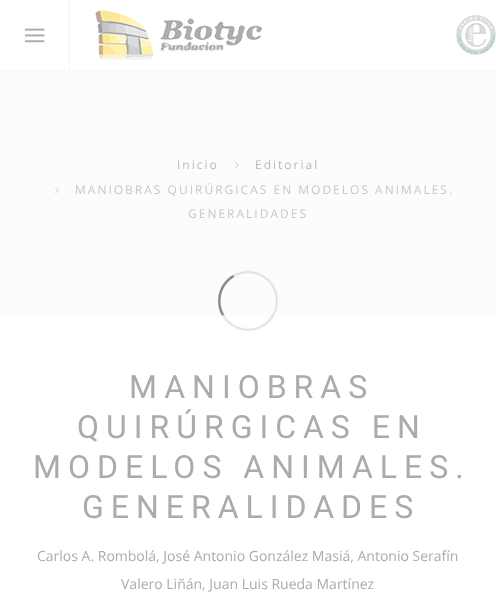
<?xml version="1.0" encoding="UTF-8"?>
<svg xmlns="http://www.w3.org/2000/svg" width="496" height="602">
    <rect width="100%" height="100%" fill="#FFFFFF"/>
    <rect x="-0.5" y="-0.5" width="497" height="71" fill="none" stroke="#F4F5F6"/>
    <rect x="69" y="0" width="1" height="70" fill="#F4F5F6"/>
    <image x="25" y="28" width="20" height="15" href="img_01.png"/>
    <image x="95" y="10" width="168" height="50" href="img_02.png"/>
    <image x="456" y="15" width="40" height="40" href="img_03.png"/>
    <rect x="0" y="71" width="496" height="246" fill="#FBFCFD"/>
    <text x="177" y="169" font-family="Open Sans" font-size="12" letter-spacing="2" fill="#B9B9B9">Inicio</text>
    <image x="235" y="161" width="4" height="8" href="img_04.png"/>
    <text x="255" y="169" font-family="Open Sans" font-size="12" letter-spacing="2" fill="#B9B9B9">Editorial</text>
    <image x="55" y="186" width="4" height="8" href="img_04.png"/>
    <text x="75" y="194" font-family="Open Sans" font-size="12" letter-spacing="2" fill="#C7C7C7">MANIOBRAS QUIRÚRGICAS EN MODELOS ANIMALES.</text>
    <text x="188" y="218" font-family="Open Sans" font-size="12" letter-spacing="2" fill="#C7C7C7">GENERALIDADES</text>
    <text x="129" y="398" font-family="Roboto" font-size="32" letter-spacing="7" fill="#ABABAB">MANIOBRAS</text>
    <text x="77" y="438" font-family="Roboto" font-size="32" letter-spacing="7" fill="#ABABAB">QUIRÚRGICAS EN</text>
    <text x="33" y="478" font-family="Roboto" font-size="32" letter-spacing="7" fill="#ABABAB">MODELOS ANIMALES.</text>
    <text x="82" y="518" font-family="Roboto" font-size="32" letter-spacing="7" fill="#ABABAB">GENERALIDADES</text>
    <text x="37" y="561" font-family="Open Sans" font-size="14" fill="#ABABAB">Carlos A. Rombolá, José Antonio González Masiá, Antonio Serafín</text>
    <text x="121" y="589" font-family="Open Sans" font-size="14" fill="#ABABAB">Valero Liñán, Juan Luis Rueda Martínez</text>
    <image x="217" y="270" width="61" height="62" href="img_05.png"/>
</svg>
